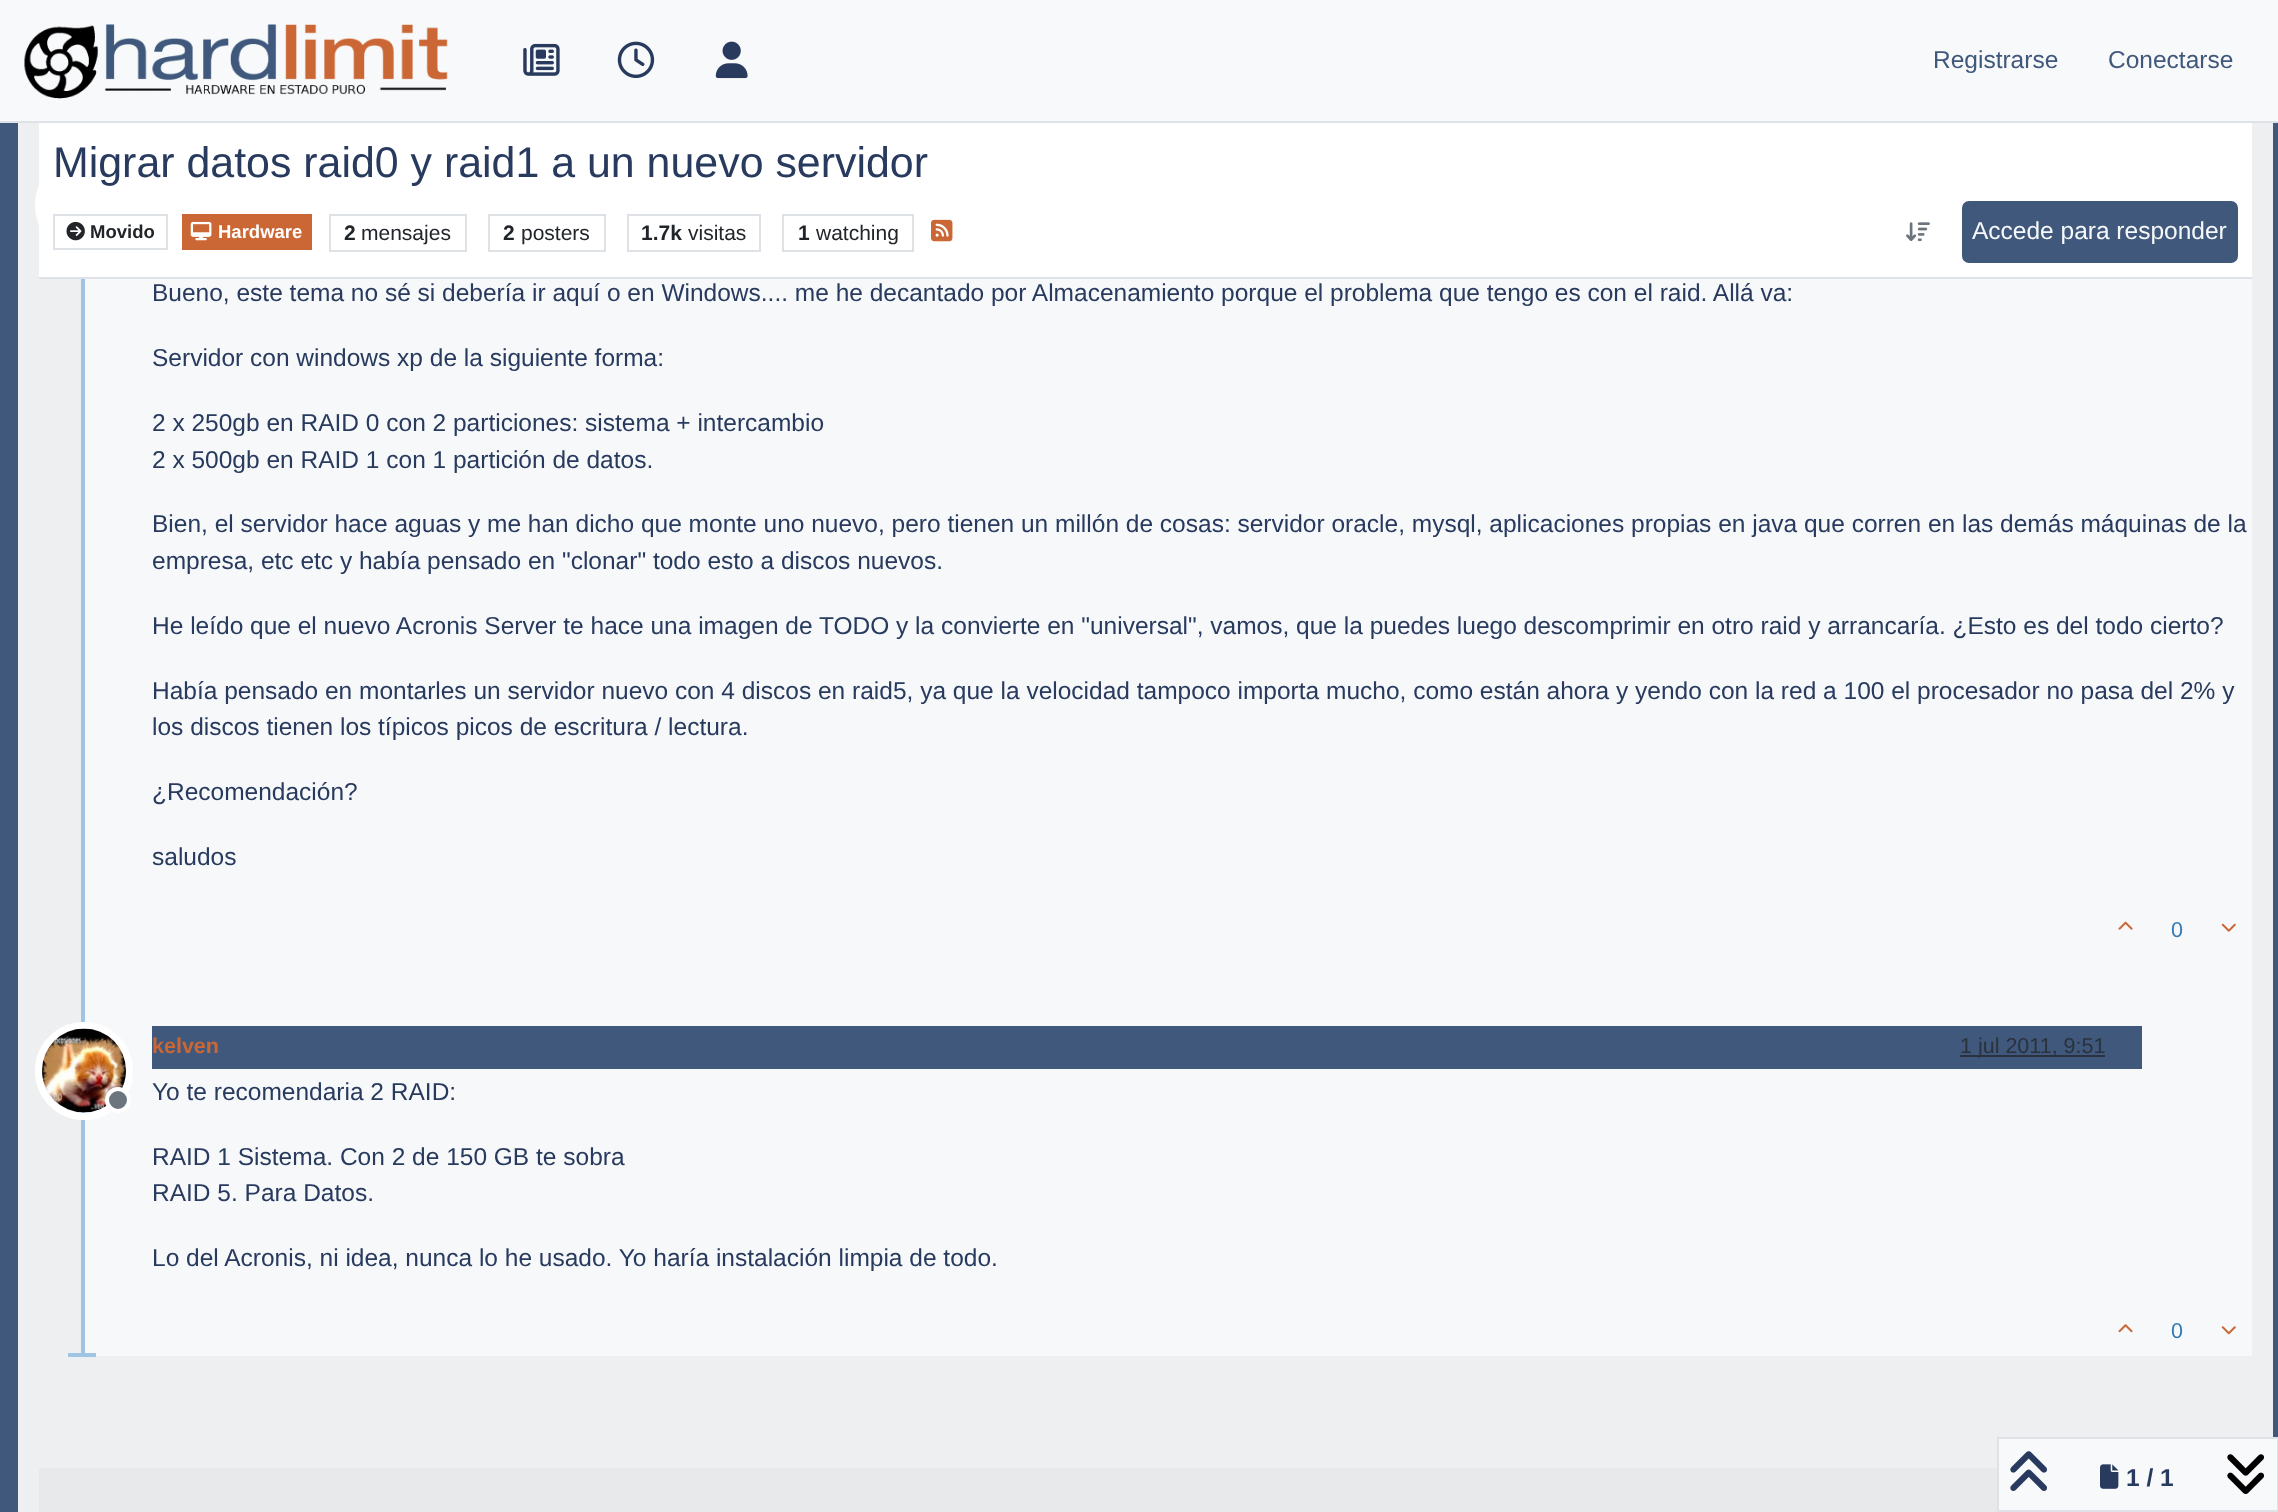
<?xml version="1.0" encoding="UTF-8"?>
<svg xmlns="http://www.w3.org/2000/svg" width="2278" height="1512">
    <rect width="100%" height="100%" fill="#40587B"/>
    <rect x="0" y="0" width="2278" height="121" fill="#F8F9FA"/>
    <rect x="0" y="121" width="2278" height="2" fill="#DEE2E6"/>
    <image x="24" y="24" width="424" height="75" href="img_01.png"/>
    <image x="523" y="43" width="37" height="33" href="img_02.png"/>
    <image x="617" y="41" width="38" height="37" href="img_03.png"/>
    <image x="715" y="41" width="33" height="38" href="img_04.png"/>
    <text x="1933" y="68" font-family="Liberation Sans" font-size="24.5" fill="#40587B">Registrarse</text>
    <text x="2108" y="68" font-family="Liberation Sans" font-size="24.5" fill="#40587B">Conectarse</text>
    <rect x="18" y="123" width="2255" height="1389" fill="#EDEFF1"/>
    <circle cx="84" cy="205" r="45.5" fill="none" stroke="#FFFFFF" stroke-width="7"/>
    <rect x="39" y="123" width="2213" height="154" fill="#FFFFFF"/>
    <rect x="39" y="277" width="2213" height="2" fill="#DEE2E6"/>
    <text x="53" y="177" font-family="Liberation Sans" font-size="42.9" fill="#283A5E">Migrar datos raid0 y raid1 a un nuevo servidor</text>
    <rect x="54" y="215" width="113" height="34" fill="none" stroke="#DEE2E6" stroke-width="2"/>
    <image x="66" y="221" width="19" height="20" href="img_05.png"/>
    <text x="90" y="238" font-family="Liberation Sans" font-size="18.5" font-weight="700" fill="#212529">Movido</text>
    <rect x="182" y="214" width="130" height="36" fill="#CB6735"/>
    <image x="190" y="221" width="22" height="20" href="img_06.png"/>
    <text x="218" y="238" font-family="Liberation Sans" font-size="18.5" font-weight="700" fill="#FFFFFF">Hardware</text>
    <rect x="330" y="215" width="136" height="36" fill="none" stroke="#DEE2E6" stroke-width="2"/>
    <text x="344" y="240" font-family="Liberation Sans" font-size="21" font-weight="700" fill="#212529">2</text>
    <text x="361" y="240" font-family="Liberation Sans" font-size="21" fill="#212529">mensajes</text>
    <rect x="489" y="215" width="116" height="36" fill="none" stroke="#DEE2E6" stroke-width="2"/>
    <text x="503" y="240" font-family="Liberation Sans" font-size="21" font-weight="700" fill="#212529">2</text>
    <text x="521" y="240" font-family="Liberation Sans" font-size="21" fill="#212529">posters</text>
    <rect x="628" y="215" width="132" height="36" fill="none" stroke="#DEE2E6" stroke-width="2"/>
    <text x="641" y="240" font-family="Liberation Sans" font-size="21" font-weight="700" fill="#212529">1.7k</text>
    <text x="688" y="240" font-family="Liberation Sans" font-size="21" fill="#212529">visitas</text>
    <rect x="783" y="215" width="130" height="36" fill="none" stroke="#DEE2E6" stroke-width="2"/>
    <text x="798" y="240" font-family="Liberation Sans" font-size="21" font-weight="700" fill="#212529">1</text>
    <text x="816" y="240" font-family="Liberation Sans" font-size="21" fill="#212529">watching</text>
    <image x="931" y="219" width="22" height="23" href="img_07.png"/>
    <image x="1906" y="222" width="24" height="20" href="img_08.png"/>
    <rect x="1962" y="201" width="276" height="62" rx="7" fill="#40587B"/>
    <text x="1972" y="239" font-family="Liberation Sans" font-size="24.5" fill="#F6F8FA">Accede para responder</text>
    <rect x="85" y="279" width="2167" height="1077" fill="#F6F8FA"/>
    <rect x="81" y="279" width="4" height="1077" fill="#A0C4E4"/>
    <text x="152" y="301" font-family="Liberation Sans" font-size="24.5" fill="#283A5E">Bueno, este tema no sé si debería ir aquí o en Windows.... me he decantado por Almacenamiento porque el problema que tengo es con el raid. Allá va:</text>
    <text x="152" y="366" font-family="Liberation Sans" font-size="24.5" fill="#283A5E">Servidor con windows xp de la siguiente forma:</text>
    <text font-family="Liberation Sans" font-size="24.5" fill="#283A5E">
        <tspan x="152" y="431">2 x 250gb en RAID 0 con 2 particiones: sistema + intercambio</tspan>
        <tspan x="152" y="468">2 x 500gb en RAID 1 con 1 partición de datos.</tspan>
    </text>
    <text font-family="Liberation Sans" font-size="24.5" fill="#283A5E">
        <tspan x="152" y="532">Bien, el servidor hace aguas y me han dicho que monte uno nuevo, pero tienen un millón de cosas: servidor oracle, mysql, aplicaciones propias en java que corren en las demás máquinas de la</tspan>
        <tspan x="152" y="569">empresa, etc etc y había pensado en "clonar" todo esto a discos nuevos.</tspan>
    </text>
    <text x="152" y="634" font-family="Liberation Sans" font-size="24.5" fill="#283A5E">He leído que el nuevo Acronis Server te hace una imagen de TODO y la convierte en "universal", vamos, que la puedes luego descomprimir en otro raid y arrancaría. ¿Esto es del todo cierto?</text>
    <text font-family="Liberation Sans" font-size="24.5" fill="#283A5E">
        <tspan x="152" y="699">Había pensado en montarles un servidor nuevo con 4 discos en raid5, ya que la velocidad tampoco importa mucho, como están ahora y yendo con la red a 100 el procesador no pasa del 2% y</tspan>
        <tspan x="152" y="735">los discos tienen los típicos picos de escritura / lectura.</tspan>
    </text>
    <text x="152" y="800" font-family="Liberation Sans" font-size="24.5" fill="#283A5E">¿Recomendación?</text>
    <text x="152" y="865" font-family="Liberation Sans" font-size="24.5" fill="#283A5E">saludos</text>
    <image x="2118" y="921" width="15" height="9" href="img_09.png"/>
    <text x="2171" y="937" font-family="Liberation Sans" font-size="21.5" fill="#337AB7">0</text>
    <image x="2221" y="923" width="15" height="9" href="img_10.png"/>
    <circle cx="84" cy="1071" r="45.5" fill="none" stroke="#FFFFFF" stroke-width="7"/>
    <image x="42" y="1028" width="84" height="85" href="img_11.png"/>
    <circle cx="118" cy="1100" r="11" fill="#6C757D" stroke="#FFFFFF" stroke-width="4"/>
    <rect x="152" y="1026" width="1990" height="43" fill="#40587B"/>
    <text x="152" y="1053" font-family="Liberation Sans" font-size="21.5" font-weight="700" fill="#CB6735">kelven</text>
    <rect x="1960" y="1055" width="145" height="2" fill="#29323E"/>
    <text x="1960" y="1053" font-family="Liberation Sans" font-size="21.5" fill="#29323D">1 jul 2011, 9:51</text>
    <text x="152" y="1100" font-family="Liberation Sans" font-size="24.5" fill="#283A5E">Yo te recomendaria 2 RAID:</text>
    <text font-family="Liberation Sans" font-size="24.5" fill="#283A5E">
        <tspan x="152" y="1165">RAID 1 Sistema. Con 2 de 150 GB te sobra</tspan>
        <tspan x="152" y="1201">RAID 5. Para Datos.</tspan>
    </text>
    <text x="152" y="1266" font-family="Liberation Sans" font-size="24.5" fill="#283A5E">Lo del Acronis, ni idea, nunca lo he usado. Yo haría instalación limpia de todo.</text>
    <image x="2118" y="1324" width="15" height="9" href="img_12.png"/>
    <text x="2171" y="1338" font-family="Liberation Sans" font-size="21.5" fill="#337AB7">0</text>
    <image x="2221" y="1326" width="15" height="9" href="img_13.png"/>
    <rect x="68" y="1353" width="28" height="4" fill="#A0C4E4"/>
    <rect x="1998" y="1438" width="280" height="73" fill="#F8F9FA" stroke="#DEE2E6" stroke-width="2"/>
    <image x="2010" y="1451" width="37" height="40" href="img_14.png"/>
    <image x="2100" y="1464" width="19" height="25" href="img_15.png"/>
    <text x="2126" y="1486" font-family="Liberation Sans" font-size="24.5" font-weight="700" fill="#283A5E">1 / 1</text>
    <image x="2227" y="1454" width="37" height="40" href="img_16.png"/>
    <rect x="39" y="1468" width="1958" height="44" fill="#E7E9EB"/>
</svg>
